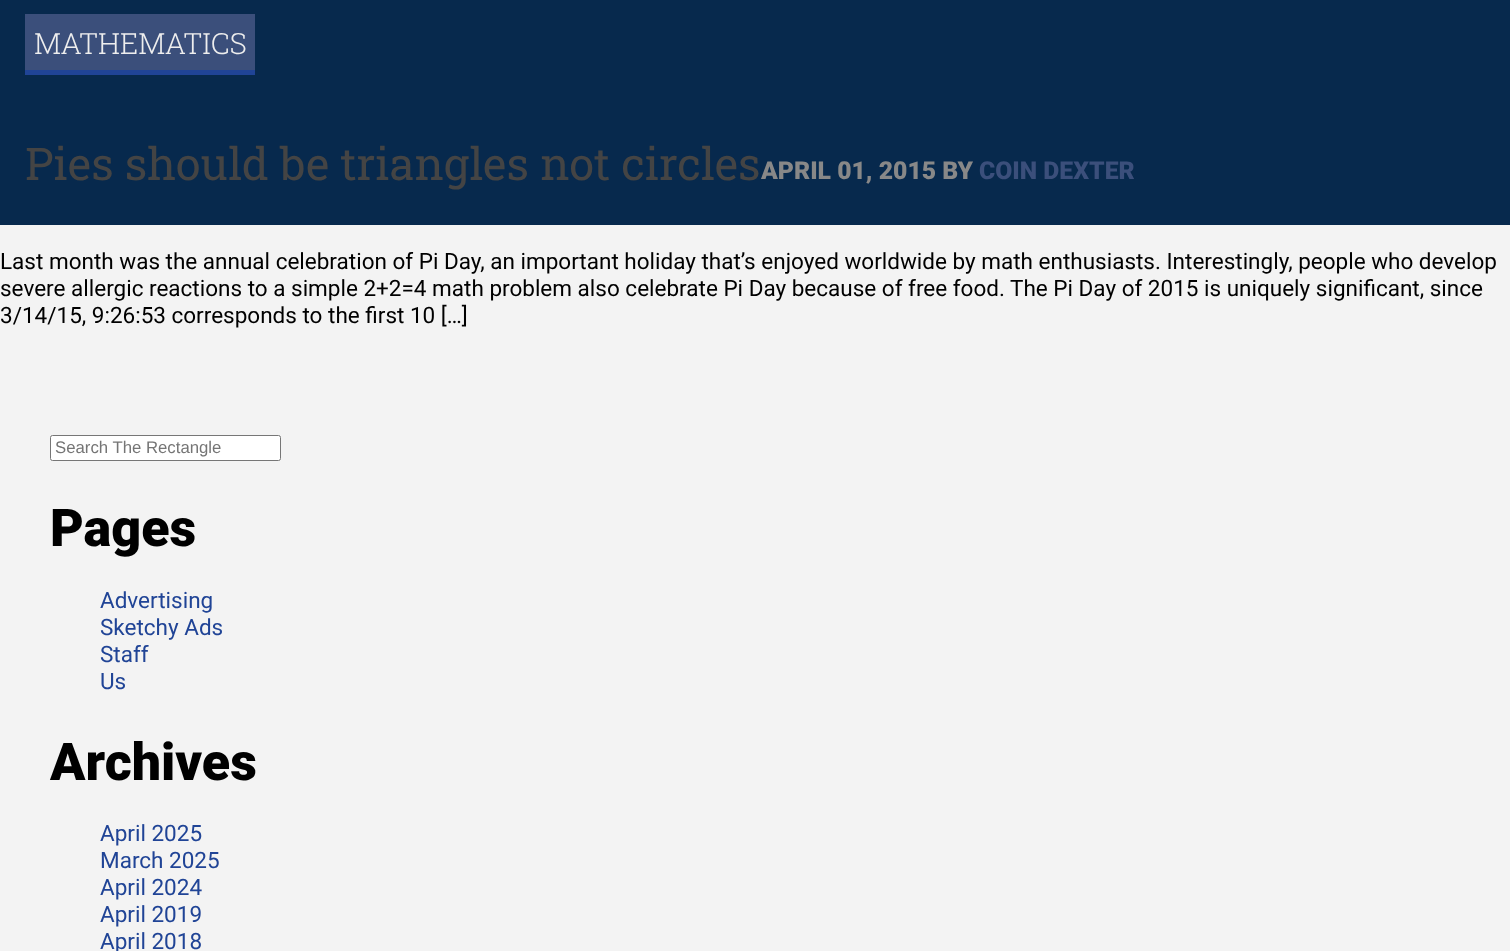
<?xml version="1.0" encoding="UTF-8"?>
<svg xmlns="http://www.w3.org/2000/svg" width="1510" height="951">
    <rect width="100%" height="100%" fill="#F3F3F3"/>
    <rect x="0" y="0" width="1510" height="225" fill="#07294D"/>
    <rect x="25" y="14" width="230" height="56" fill="#3B4F7B"/>
    <rect x="25" y="70" width="230" height="5" fill="#204496"/>
    <text x="34" y="54" font-family="Roboto Slab" font-size="29.25" font-weight="300" fill="#EEEEEE">MATHEMATICS</text>
    <text x="25" y="180" font-family="Roboto Slab" font-size="45" fill="#444444">Pies should be triangles not circles</text>
    <text x="761" y="179" font-family="Roboto" font-size="24.75" font-weight="900" fill="#888888">APRIL 01, 2015 BY</text>
    <text x="979" y="179" font-family="Roboto" font-size="24.75" font-weight="900" fill="#3B4F7B">COIN DEXTER</text>
    <text font-family="Roboto" font-size="22.5" fill="#000000">
        <tspan x="0" y="269">Last month was the annual celebration of Pi Day, an important holiday that’s enjoyed worldwide by math enthusiasts. Interestingly, people who develop</tspan>
        <tspan x="0" y="296">severe allergic reactions to a simple 2+2=4 math problem also celebrate Pi Day because of free food. The Pi Day of 2015 is uniquely significant, since</tspan>
        <tspan x="0" y="323">3/14/15, 9:26:53 corresponds to the first 10 […]</tspan>
    </text>
    <rect x="50.5" y="435.5" width="230" height="25" rx="2" fill="#FFFFFF" stroke="#767676"/>
    <text x="55" y="453" font-family="Liberation Sans" font-size="16.75" fill="#757575">Search The Rectangle</text>
    <text x="50" y="546" font-family="Roboto" font-size="52" font-weight="900" fill="#000000">Pages</text>
    <text font-family="Roboto" font-size="22.5" fill="#204496">
        <tspan x="100" y="608">Advertising</tspan>
        <tspan x="100" y="635">Sketchy Ads</tspan>
        <tspan x="100" y="662">Staff</tspan>
        <tspan x="100" y="689">Us</tspan>
    </text>
    <text x="50" y="780" font-family="Roboto" font-size="52" font-weight="900" fill="#000000">Archives</text>
    <text font-family="Roboto" font-size="22.5" fill="#204496">
        <tspan x="100" y="841">April 2025</tspan>
        <tspan x="100" y="868">March 2025</tspan>
        <tspan x="100" y="895">April 2024</tspan>
        <tspan x="100" y="922">April 2019</tspan>
        <tspan x="100" y="949">April 2018</tspan>
    </text>
</svg>
